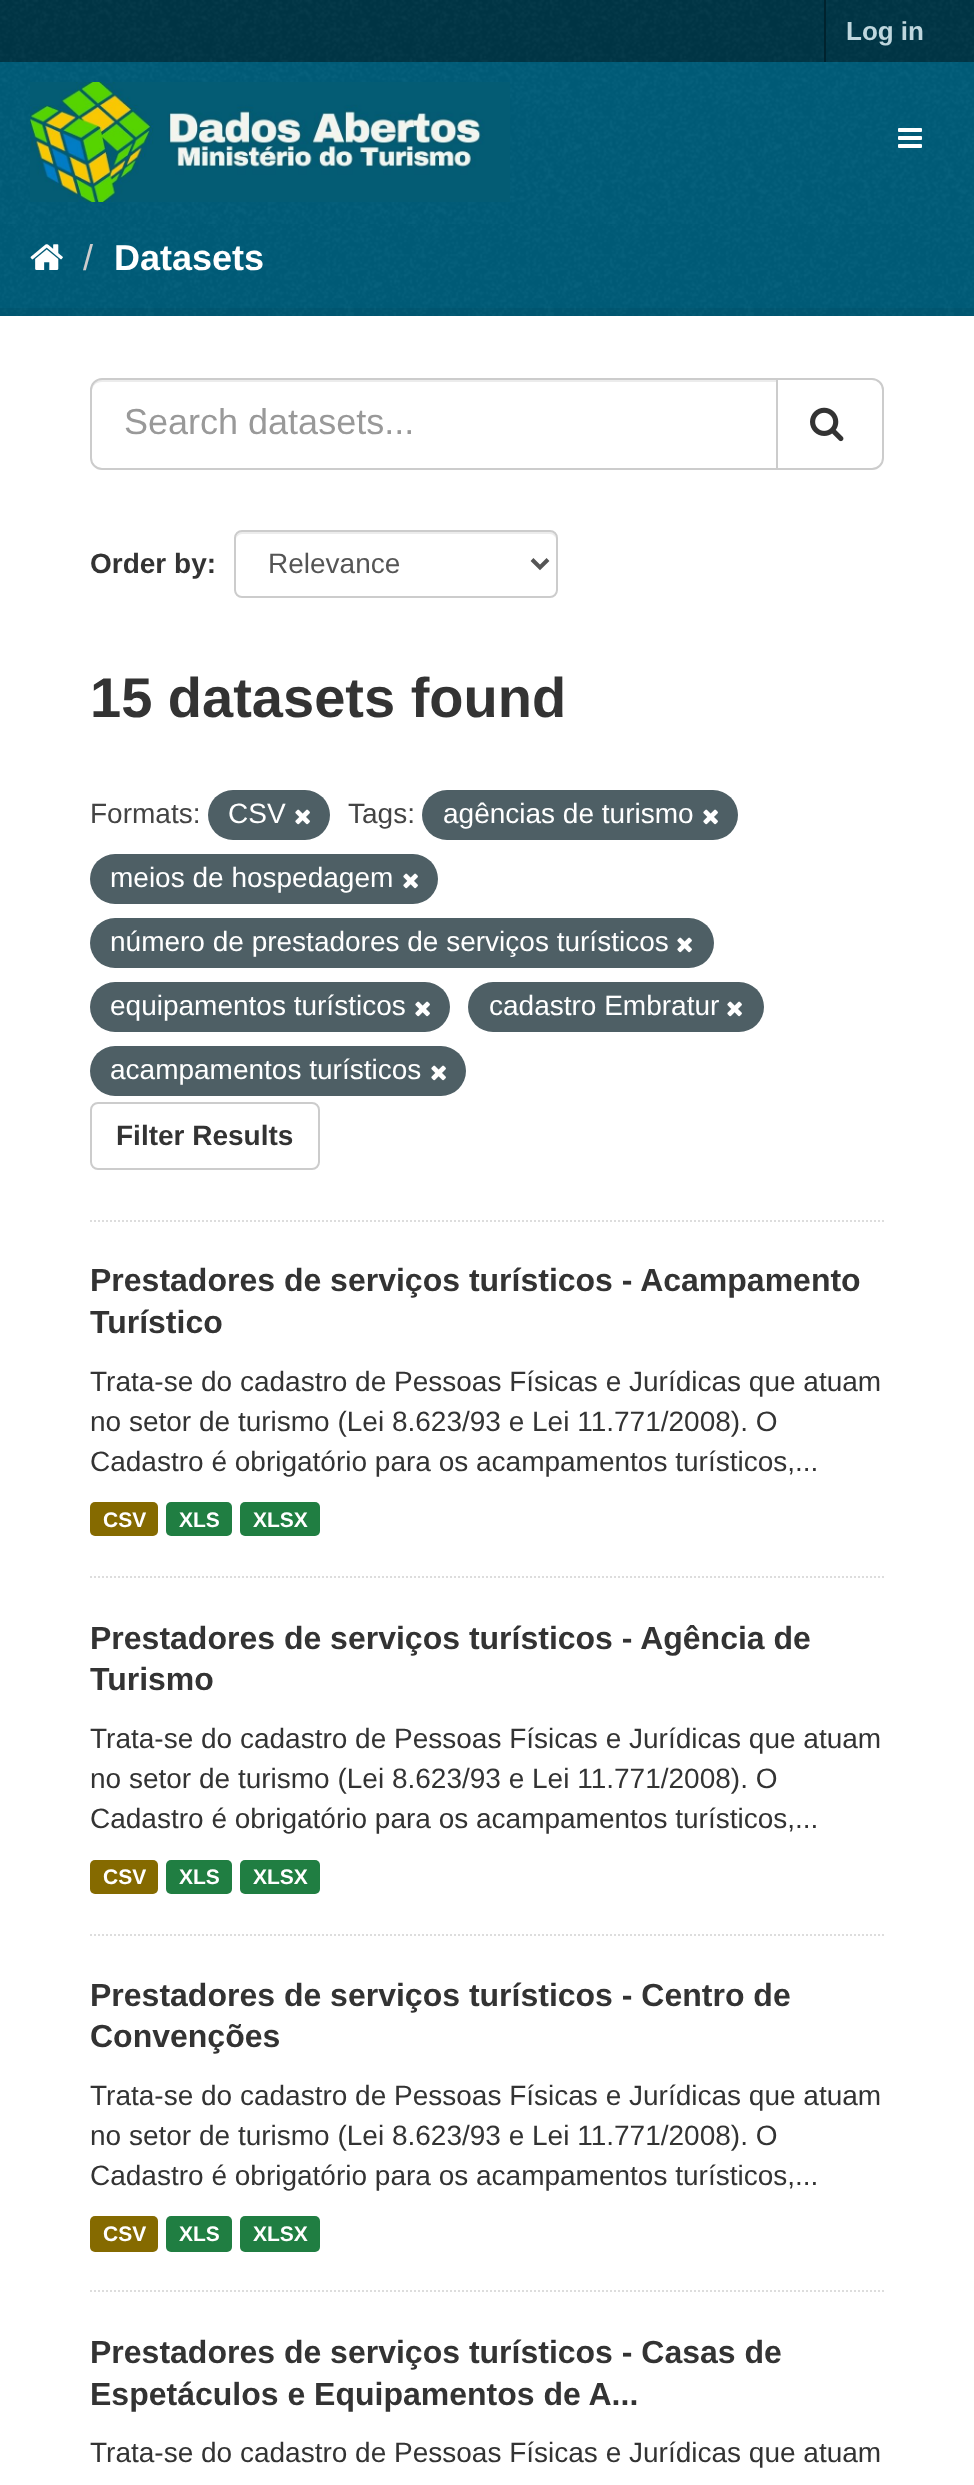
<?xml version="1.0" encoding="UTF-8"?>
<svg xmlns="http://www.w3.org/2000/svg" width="974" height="2485">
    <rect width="100%" height="100%" fill="#005D7A"/>
    <image x="0" y="224" width="974" height="92" href="img_01.png"/>
    <rect x="0" y="0" width="974" height="62" fill="#003647"/>
    <image x="0" y="0" width="974" height="62" href="img_02.png"/>
    <rect x="824" y="0" width="2" height="62" fill="#00232E"/>
    <text x="846" y="40" font-family="Liberation Sans" font-size="26" font-weight="700" fill="#BFD7DE">Log in</text>
    <image x="0" y="62" width="974" height="162" href="img_03.png"/>
    <image x="30" y="82" width="480" height="120" href="img_04.png"/>
    <image x="898" y="128" width="24" height="20" href="img_05.png"/>
    <image x="30" y="244" width="33" height="26" href="img_06.png"/>
    <text x="83" y="270" font-family="Liberation Sans" font-size="36" fill="#CCCCCC">/</text>
    <text x="114" y="270" font-family="Liberation Sans" font-size="36" font-weight="700" fill="#FFFFFF">Datasets</text>
    <rect x="-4" y="312" width="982" height="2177" fill="none" stroke="#000000" stroke-opacity="0.05" stroke-width="8"/>
    <rect x="0" y="316" width="974" height="2169" fill="#FFFFFF"/>
    <path d="M 90 1221 H 884" fill="none" stroke="#DDDDDD" stroke-width="2" stroke-dasharray="2 2"/>
    <path d="M 102 382 H 776 V 380 H 102 C 95 380 92 386 92 392 C 92 386 96 382 102 382 Z" fill="#ECECEC"/>
    <path d="M 102 379 H 777 V 469 H 102 C 96 469 91 464 91 458 V 390 C 91 384 96 379 102 379 Z" fill="none" stroke="#CCCCCC" stroke-width="2"/>
    <text x="124" y="434" font-family="Liberation Sans" font-size="36" fill="#999999">Search datasets...</text>
    <path d="M 777 379 H 872 C 878 379 883 384 883 390 V 458 C 883 464 878 469 872 469 H 777 Z" fill="#FFFFFF" stroke="#CCCCCC" stroke-width="2"/>
    <image x="810" y="407" width="34" height="35" href="img_07.png"/>
    <text x="90" y="573" font-family="Liberation Sans" font-size="28" font-weight="700" fill="#333333">Order by:</text>
    <path d="M 242 534 H 550 C 553 534 556 537 556 540 C 556 536 555 532 550 532 H 241 C 237 533 236 537 236 540 C 236 537 239 534 242 534 Z" fill="#ECECEC"/>
    <rect x="235" y="531" width="322" height="66" rx="7" fill="none" stroke="#CCCCCC" stroke-width="2"/>
    <path d="M 532 559.5 L 540 567.5 L 548 559.5" fill="none" stroke="#555555" stroke-width="4"/>
    <text x="268" y="573" font-family="Liberation Sans" font-size="28" fill="#555555">Relevance</text>
    <text x="90" y="717" font-family="Liberation Sans" font-size="56" font-weight="700" fill="#333333">15 datasets found</text>
    <text x="90" y="823" font-family="Liberation Sans" font-size="28" fill="#444444">Formats:</text>
    <rect x="208" y="790" width="122" height="50" rx="25" fill="#4E5F65"/>
    <text x="228" y="823" font-family="Liberation Sans" font-size="28" fill="#FFFFFF">CSV</text>
    <image x="295" y="809" width="15" height="16" href="img_08.png"/>
    <text x="348" y="823" font-family="Liberation Sans" font-size="28" fill="#444444">Tags:</text>
    <rect x="422" y="790" width="316" height="50" rx="25" fill="#4E5F65"/>
    <text x="443" y="823" font-family="Liberation Sans" font-size="28" fill="#FFFFFF">agências de turismo</text>
    <image x="703" y="809" width="15" height="16" href="img_08.png"/>
    <rect x="90" y="854" width="348" height="50" rx="25" fill="#4E5F65"/>
    <text x="110" y="887" font-family="Liberation Sans" font-size="28" fill="#FFFFFF">meios de hospedagem</text>
    <image x="403" y="873" width="15" height="16" href="img_08.png"/>
    <rect x="90" y="918" width="624" height="50" rx="25" fill="#4E5F65"/>
    <text x="110" y="951" font-family="Liberation Sans" font-size="28" fill="#FFFFFF">número de prestadores de serviços turísticos</text>
    <image x="677" y="937" width="15" height="16" href="img_08.png"/>
    <rect x="90" y="982" width="360" height="50" rx="25" fill="#4E5F65"/>
    <text x="110" y="1015" font-family="Liberation Sans" font-size="28" fill="#FFFFFF">equipamentos turísticos</text>
    <image x="415" y="1001" width="15" height="16" href="img_08.png"/>
    <rect x="468" y="982" width="296" height="50" rx="25" fill="#4E5F65"/>
    <text x="489" y="1015" font-family="Liberation Sans" font-size="28" fill="#FFFFFF">cadastro Embratur</text>
    <image x="727" y="1001" width="15" height="16" href="img_08.png"/>
    <rect x="90" y="1046" width="376" height="50" rx="25" fill="#4E5F65"/>
    <text x="110" y="1079" font-family="Liberation Sans" font-size="28" fill="#FFFFFF">acampamentos turísticos</text>
    <image x="431" y="1065" width="15" height="16" href="img_08.png"/>
    <rect x="91" y="1103" width="228" height="66" rx="7" fill="none" stroke="#CCCCCC" stroke-width="2"/>
    <text x="116" y="1145" font-family="Liberation Sans" font-size="28" font-weight="700" fill="#333333">Filter Results</text>
    <path d="M 90 1577 H 884" fill="none" stroke="#DDDDDD" stroke-width="2" stroke-dasharray="2 2"/>
    <text font-family="Liberation Sans" font-size="32" font-weight="700" fill="#333333">
        <tspan x="90" y="1291">Prestadores de serviços turísticos - Acampamento</tspan>
        <tspan x="90" y="1333">Turístico</tspan>
    </text>
    <text font-family="Liberation Sans" font-size="28" fill="#333333">
        <tspan x="90" y="1391">Trata-se do cadastro de Pessoas Físicas e Jurídicas que atuam</tspan>
        <tspan x="90" y="1431">no setor de turismo (Lei 8.623/93 e Lei 11.771/2008). O</tspan>
        <tspan x="90" y="1471">Cadastro é obrigatório para os acampamentos turísticos,...</tspan>
    </text>
    <rect x="90" y="1502" width="68" height="34" rx="5" fill="#856A00"/>
    <text x="103" y="1527" font-family="Liberation Sans" font-size="21" font-weight="700" fill="#FFFFFF">CSV</text>
    <rect x="166" y="1502" width="66" height="34" rx="5" fill="#207E42"/>
    <text x="179" y="1527" font-family="Liberation Sans" font-size="21" font-weight="700" fill="#FFFFFF">XLS</text>
    <rect x="240" y="1502" width="80" height="34" rx="5" fill="#207E42"/>
    <text x="253" y="1527" font-family="Liberation Sans" font-size="21" font-weight="700" fill="#FFFFFF">XLSX</text>
    <path d="M 90 1935 H 884" fill="none" stroke="#DDDDDD" stroke-width="2" stroke-dasharray="2 2"/>
    <text font-family="Liberation Sans" font-size="32" font-weight="700" fill="#333333">
        <tspan x="90" y="1649">Prestadores de serviços turísticos - Agência de</tspan>
        <tspan x="90" y="1690">Turismo</tspan>
    </text>
    <text font-family="Liberation Sans" font-size="28" fill="#333333">
        <tspan x="90" y="1748">Trata-se do cadastro de Pessoas Físicas e Jurídicas que atuam</tspan>
        <tspan x="90" y="1788">no setor de turismo (Lei 8.623/93 e Lei 11.771/2008). O</tspan>
        <tspan x="90" y="1828">Cadastro é obrigatório para os acampamentos turísticos,...</tspan>
    </text>
    <rect x="90" y="1860" width="68" height="34" rx="5" fill="#856A00"/>
    <text x="103" y="1884" font-family="Liberation Sans" font-size="21" font-weight="700" fill="#FFFFFF">CSV</text>
    <rect x="166" y="1860" width="66" height="34" rx="5" fill="#207E42"/>
    <text x="179" y="1884" font-family="Liberation Sans" font-size="21" font-weight="700" fill="#FFFFFF">XLS</text>
    <rect x="240" y="1860" width="80" height="34" rx="5" fill="#207E42"/>
    <text x="253" y="1884" font-family="Liberation Sans" font-size="21" font-weight="700" fill="#FFFFFF">XLSX</text>
    <path d="M 90 2291 H 884" fill="none" stroke="#DDDDDD" stroke-width="2" stroke-dasharray="2 2"/>
    <text font-family="Liberation Sans" font-size="32" font-weight="700" fill="#333333">
        <tspan x="90" y="2006">Prestadores de serviços turísticos - Centro de</tspan>
        <tspan x="90" y="2047">Convenções</tspan>
    </text>
    <text font-family="Liberation Sans" font-size="28" fill="#333333">
        <tspan x="90" y="2105">Trata-se do cadastro de Pessoas Físicas e Jurídicas que atuam</tspan>
        <tspan x="90" y="2145">no setor de turismo (Lei 8.623/93 e Lei 11.771/2008). O</tspan>
        <tspan x="90" y="2185">Cadastro é obrigatório para os acampamentos turísticos,...</tspan>
    </text>
    <rect x="90" y="2216" width="68" height="36" rx="5" fill="#856A00"/>
    <text x="103" y="2241" font-family="Liberation Sans" font-size="21" font-weight="700" fill="#FFFFFF">CSV</text>
    <rect x="166" y="2216" width="66" height="36" rx="5" fill="#207E42"/>
    <text x="179" y="2241" font-family="Liberation Sans" font-size="21" font-weight="700" fill="#FFFFFF">XLS</text>
    <rect x="240" y="2216" width="80" height="36" rx="5" fill="#207E42"/>
    <text x="253" y="2241" font-family="Liberation Sans" font-size="21" font-weight="700" fill="#FFFFFF">XLSX</text>
    <text font-family="Liberation Sans" font-size="32" font-weight="700" fill="#333333">
        <tspan x="90" y="2363">Prestadores de serviços turísticos - Casas de</tspan>
        <tspan x="90" y="2405">Espetáculos e Equipamentos de A...</tspan>
    </text>
    <text x="90" y="2462" font-family="Liberation Sans" font-size="28" fill="#333333">Trata-se do cadastro de Pessoas Físicas e Jurídicas que atuam</text>
</svg>
